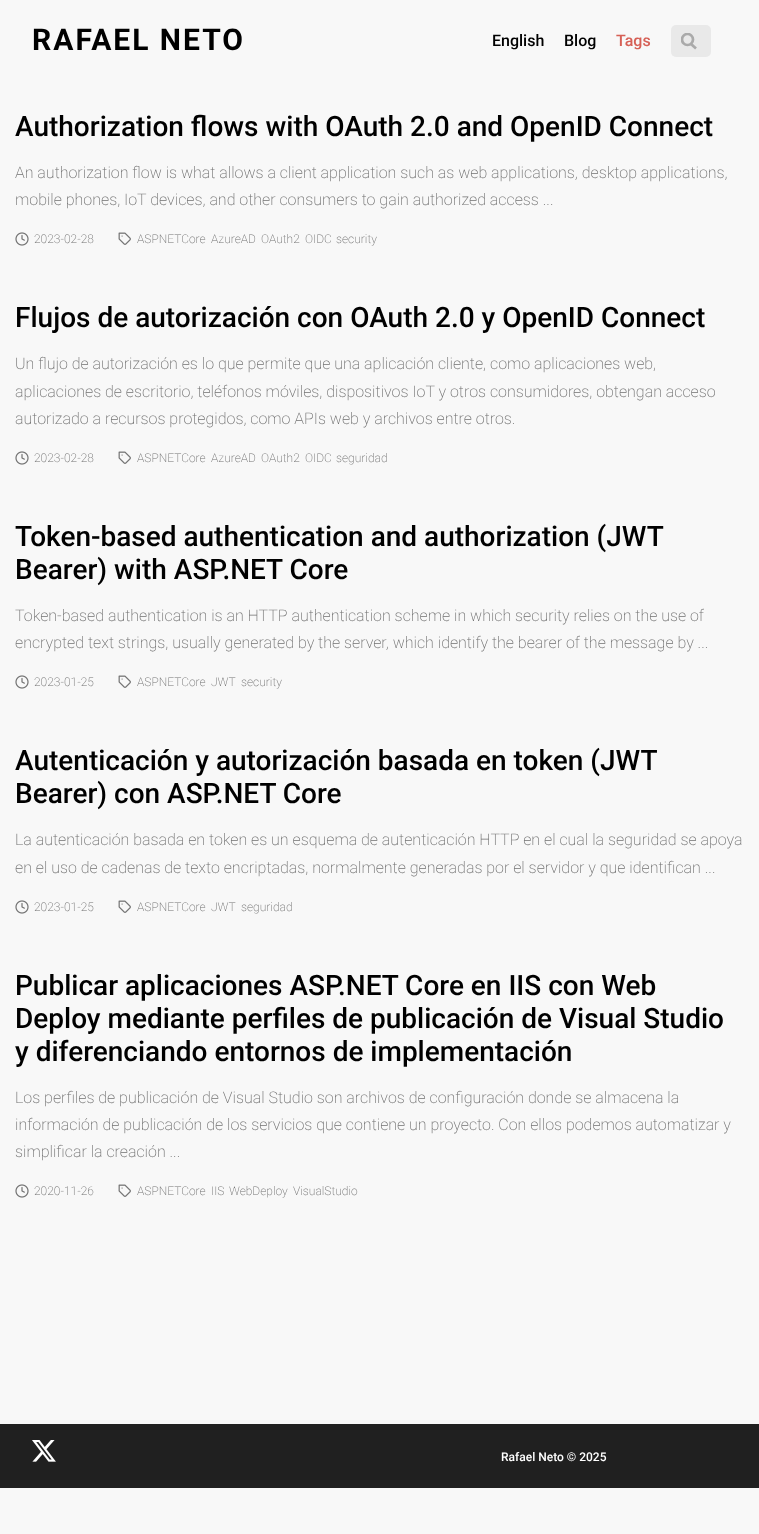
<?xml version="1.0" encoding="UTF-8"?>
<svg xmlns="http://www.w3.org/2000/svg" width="759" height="1534">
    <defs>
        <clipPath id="clip1"><rect x="681" y="33" width="16" height="17"/></clipPath>
    </defs>
    <rect width="100%" height="100%" fill="#F8F8F8"/>
    <text x="32" y="50" font-family="Roboto" font-size="30" font-weight="700" letter-spacing="2" fill="#000000">RAFAEL NETO</text>
    <text x="492" y="46" font-family="Roboto" font-size="16" font-weight="500" fill="#000000">English</text>
    <text x="564" y="46" font-family="Roboto" font-size="16" font-weight="500" fill="#000000">Blog</text>
    <text x="616" y="46" font-family="Roboto" font-size="16" font-weight="500" fill="#D66056">Tags</text>
    <rect x="671" y="25" width="40" height="32" rx="5" fill="#E9E9E9"/>
    <path d="M 696 48.5 L 690.5 43.5" fill="none" stroke="#AAAAAA" stroke-width="2.7"/>
    <g clip-path="url(#clip1)">
        <circle cx="687.5" cy="39.5" r="5.5" fill="none" stroke="#AAAAAA" stroke-width="2.7"/>
    </g>
    <text x="15" y="136" font-family="Roboto" font-size="28" font-weight="500" fill="#000000">Authorization flows with OAuth 2.0 and OpenID Connect</text>
    <text font-family="Roboto" font-size="16" font-weight="200" fill="#727272">
        <tspan x="15" y="178">An authorization flow is what allows a client application such as web applications, desktop applications,</tspan>
        <tspan x="15" y="205">mobile phones, IoT devices, and other consumers to gain authorized access ...</tspan>
    </text>
    <image x="15" y="232" width="14" height="14" href="img_01.png"/>
    <text x="34" y="243" font-family="Roboto" font-size="12" font-weight="200" fill="#727272">2023-02-28</text>
    <image x="118" y="232" width="13" height="13" href="img_02.png"/>
    <text x="137" y="243" font-family="Roboto" font-size="12" font-weight="200" fill="#727272">ASPNETCore</text>
    <text x="211" y="243" font-family="Roboto" font-size="12" font-weight="200" fill="#727272">AzureAD</text>
    <text x="261" y="243" font-family="Roboto" font-size="12" font-weight="200" fill="#727272">OAuth2</text>
    <text x="305" y="243" font-family="Roboto" font-size="12" font-weight="200" fill="#727272">OIDC</text>
    <text x="336" y="243" font-family="Roboto" font-size="12" font-weight="200" fill="#727272">security</text>
    <text x="15" y="327" font-family="Roboto" font-size="28" font-weight="500" fill="#000000">Flujos de autorización con OAuth 2.0 y OpenID Connect</text>
    <text font-family="Roboto" font-size="16" font-weight="200" fill="#727272">
        <tspan x="15" y="369">Un flujo de autorización es lo que permite que una aplicación cliente, como aplicaciones web,</tspan>
        <tspan x="15" y="397">aplicaciones de escritorio, teléfonos móviles, dispositivos IoT y otros consumidores, obtengan acceso</tspan>
        <tspan x="15" y="424">autorizado a recursos protegidos, como APIs web y archivos entre otros.</tspan>
    </text>
    <image x="15" y="451" width="14" height="14" href="img_01.png"/>
    <text x="34" y="462" font-family="Roboto" font-size="12" font-weight="200" fill="#727272">2023-02-28</text>
    <image x="118" y="451" width="13" height="13" href="img_02.png"/>
    <text x="137" y="462" font-family="Roboto" font-size="12" font-weight="200" fill="#727272">ASPNETCore</text>
    <text x="211" y="462" font-family="Roboto" font-size="12" font-weight="200" fill="#727272">AzureAD</text>
    <text x="261" y="462" font-family="Roboto" font-size="12" font-weight="200" fill="#727272">OAuth2</text>
    <text x="305" y="462" font-family="Roboto" font-size="12" font-weight="200" fill="#727272">OIDC</text>
    <text x="336" y="462" font-family="Roboto" font-size="12" font-weight="200" fill="#727272">seguridad</text>
    <text font-family="Roboto" font-size="28" font-weight="500" fill="#000000">
        <tspan x="15" y="546">Token-based authentication and authorization (JWT</tspan>
        <tspan x="15" y="579">Bearer) with ASP.NET Core</tspan>
    </text>
    <text font-family="Roboto" font-size="16" font-weight="200" fill="#727272">
        <tspan x="15" y="621">Token-based authentication is an HTTP authentication scheme in which security relies on the use of</tspan>
        <tspan x="15" y="648">encrypted text strings, usually generated by the server, which identify the bearer of the message by ...</tspan>
    </text>
    <image x="15" y="675" width="14" height="14" href="img_01.png"/>
    <text x="34" y="686" font-family="Roboto" font-size="12" font-weight="200" fill="#727272">2023-01-25</text>
    <image x="118" y="675" width="13" height="13" href="img_02.png"/>
    <text x="137" y="686" font-family="Roboto" font-size="12" font-weight="200" fill="#727272">ASPNETCore</text>
    <text x="211" y="686" font-family="Roboto" font-size="12" font-weight="200" fill="#727272">JWT</text>
    <text x="241" y="686" font-family="Roboto" font-size="12" font-weight="200" fill="#727272">security</text>
    <text font-family="Roboto" font-size="28" font-weight="500" fill="#000000">
        <tspan x="15" y="770">Autenticación y autorización basada en token (JWT</tspan>
        <tspan x="15" y="803">Bearer) con ASP.NET Core</tspan>
    </text>
    <text font-family="Roboto" font-size="16" font-weight="200" fill="#727272">
        <tspan x="15" y="845">La autenticación basada en token es un esquema de autenticación HTTP en el cual la seguridad se apoya</tspan>
        <tspan x="15" y="873">en el uso de cadenas de texto encriptadas, normalmente generadas por el servidor y que identifican ...</tspan>
    </text>
    <image x="15" y="900" width="14" height="14" href="img_01.png"/>
    <text x="34" y="911" font-family="Roboto" font-size="12" font-weight="200" fill="#727272">2023-01-25</text>
    <image x="118" y="900" width="13" height="13" href="img_02.png"/>
    <text x="137" y="911" font-family="Roboto" font-size="12" font-weight="200" fill="#727272">ASPNETCore</text>
    <text x="211" y="911" font-family="Roboto" font-size="12" font-weight="200" fill="#727272">JWT</text>
    <text x="241" y="911" font-family="Roboto" font-size="12" font-weight="200" fill="#727272">seguridad</text>
    <text font-family="Roboto" font-size="28" font-weight="500" fill="#000000">
        <tspan x="15" y="995">Publicar aplicaciones ASP.NET Core en IIS con Web</tspan>
        <tspan x="15" y="1028">Deploy mediante perfiles de publicación de Visual Studio</tspan>
        <tspan x="15" y="1061">y diferenciando entornos de implementación</tspan>
    </text>
    <text font-family="Roboto" font-size="16" font-weight="200" fill="#727272">
        <tspan x="15" y="1103">Los perfiles de publicación de Visual Studio son archivos de configuración donde se almacena la</tspan>
        <tspan x="15" y="1130">información de publicación de los servicios que contiene un proyecto. Con ellos podemos automatizar y</tspan>
        <tspan x="15" y="1157">simplificar la creación ...</tspan>
    </text>
    <image x="15" y="1184" width="14" height="14" href="img_01.png"/>
    <text x="34" y="1195" font-family="Roboto" font-size="12" font-weight="200" fill="#727272">2020-11-26</text>
    <image x="118" y="1184" width="13" height="13" href="img_02.png"/>
    <text x="137" y="1195" font-family="Roboto" font-size="12" font-weight="200" fill="#727272">ASPNETCore</text>
    <text x="211" y="1195" font-family="Roboto" font-size="12" font-weight="200" fill="#727272">IIS</text>
    <text x="229" y="1195" font-family="Roboto" font-size="12" font-weight="200" fill="#727272">WebDeploy</text>
    <text x="293" y="1195" font-family="Roboto" font-size="12" font-weight="200" fill="#727272">VisualStudio</text>
    <rect x="0" y="1424" width="759" height="64" fill="#202020"/>
    <image x="32" y="1440" width="24" height="22" href="img_03.png"/>
    <text x="501" y="1461" font-family="Roboto" font-size="12" font-weight="500" fill="#FFFFFF">Rafael Neto © 2025</text>
</svg>
